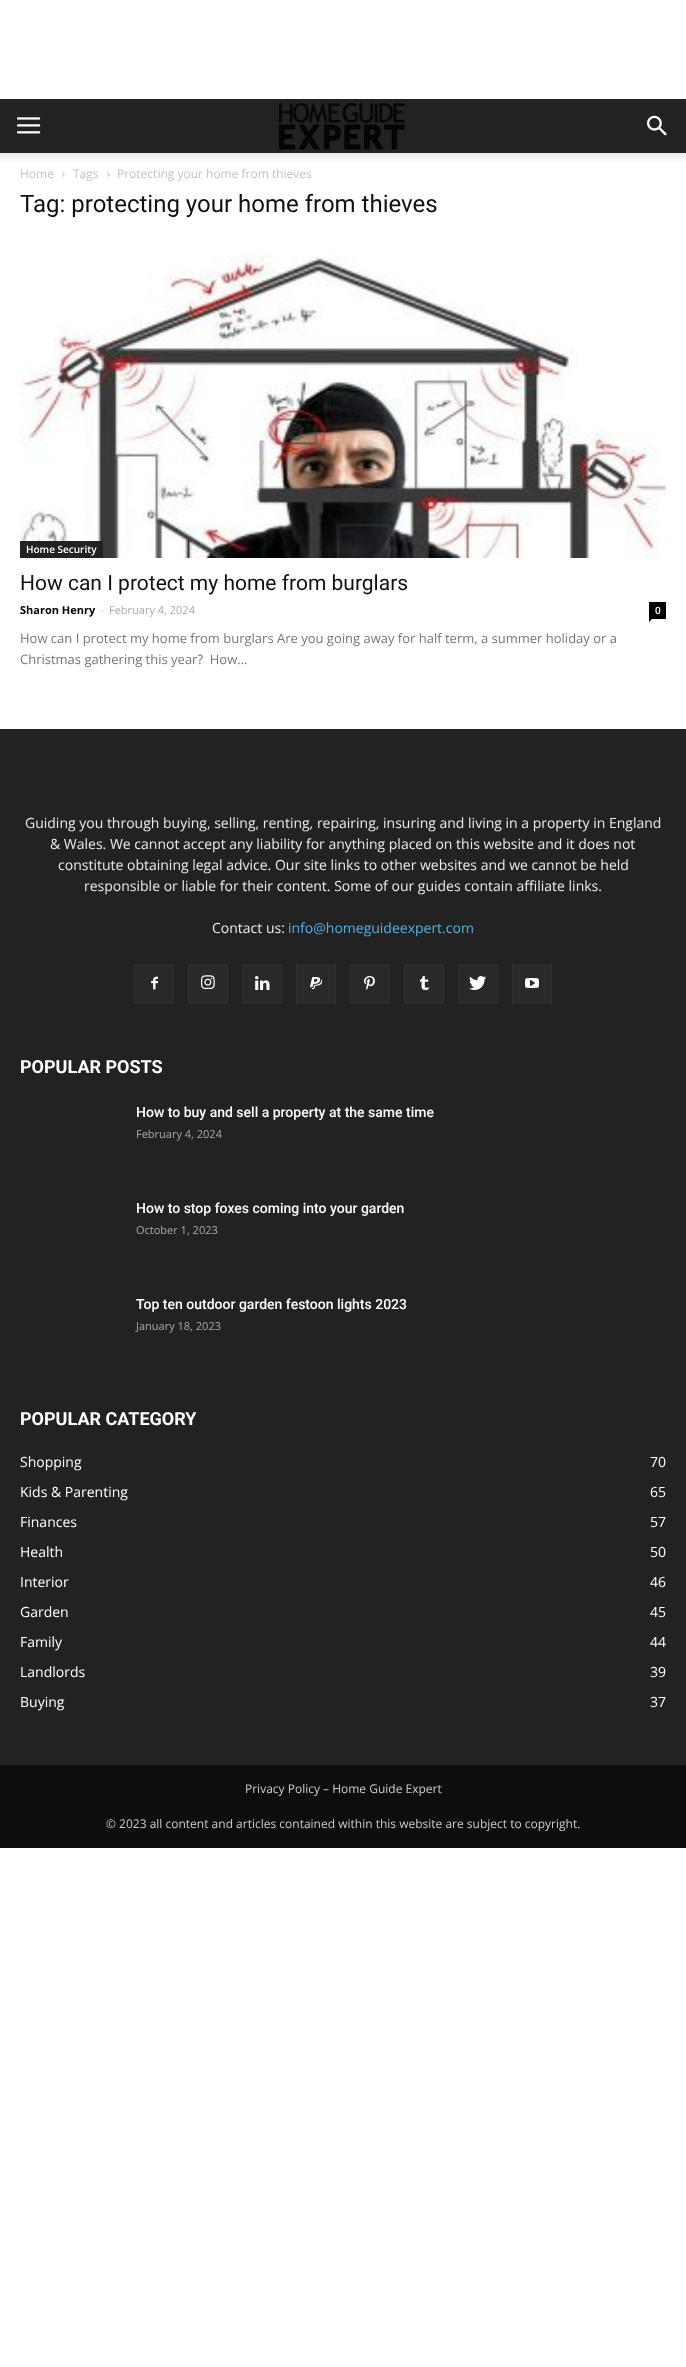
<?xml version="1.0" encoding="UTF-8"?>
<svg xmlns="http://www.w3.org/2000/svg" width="686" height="2367">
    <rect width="100%" height="100%" fill="#FFFFFF"/>
    <rect x="0" y="99" width="686" height="54" fill="#222222"/>
    <image x="17" y="117" width="24" height="17" href="img_01.png"/>
    <image x="279" y="103" width="126" height="47" href="img_02.png"/>
    <image x="647" y="115" width="20" height="21" href="img_03.png"/>
    <image x="0" y="153" width="686" height="9" href="img_04.png"/>
    <text x="20" y="178" font-family="Open Sans" font-size="12" fill="#C3C3C3">Home</text>
    <image x="62" y="172" width="3" height="5" href="img_05.png"/>
    <text x="73" y="178" font-family="Open Sans" font-size="12" fill="#C3C3C3">Tags</text>
    <image x="107" y="172" width="3" height="5" href="img_05.png"/>
    <text x="117" y="178" font-family="Open Sans" font-size="12" fill="#C3C3C3">Protecting your home from thieves</text>
    <text x="20" y="212" font-family="Roboto" font-size="24" fill="#111111">Tag: protecting your home from thieves</text>
    <image x="20" y="253" width="646" height="305" href="img_06.png"/>
    <rect x="20" y="541" width="83" height="17" fill="#222222"/>
    <text x="26" y="553" font-family="Open Sans" font-size="10" font-weight="600" fill="#FFFFFF">Home Security</text>
    <text x="20" y="590" font-family="Roboto" font-size="21" fill="#111111">How can I protect my home from burglars</text>
    <text x="20" y="614" font-family="Open Sans" font-size="11" font-weight="700" fill="#000000">Sharon Henry</text>
    <text x="100" y="614" font-family="Open Sans" font-size="11" fill="#CCCCCC">-</text>
    <text x="109" y="614" font-family="Open Sans" font-size="11" fill="#AAAAAA">February 4, 2024</text>
    <rect x="649" y="602" width="17" height="17" fill="#000000"/>
    <text x="655" y="614" font-family="Open Sans" font-size="10" font-weight="600" fill="#FFFFFF">0</text>
    <path d="M 649 619 H 652 L 649 622 Z" fill="#000000"/>
    <text font-family="Open Sans" font-size="13" fill="#777777" xml:space="preserve"><tspan x="20" y="643">How can I protect my home from burglars Are you going away for half term, a summer holiday or a</tspan><tspan x="20" y="664">Christmas gathering this year?  How...</tspan></text>
    <rect x="0" y="729" width="686" height="1036" fill="#222222"/>
    <text x="25" y="828" font-family="Open Sans" font-size="14" fill="#EAEAEA">Guiding you through buying, selling, renting, repairing, insuring and living in a property in England</text>
    <text x="50" y="849" font-family="Open Sans" font-size="14" fill="#EAEAEA">&amp; Wales. We cannot accept any liability for anything placed on this website and it does not</text>
    <text x="58" y="870" font-family="Open Sans" font-size="14" fill="#EAEAEA">constitute obtaining legal advice. Our site links to other websites and we cannot be held</text>
    <text x="84" y="891" font-family="Open Sans" font-size="14" fill="#EAEAEA">responsible or liable for their content. Some of our guides contain affiliate links.</text>
    <text x="212" y="933" font-family="Open Sans" font-size="14" fill="#EAEAEA">Contact us:</text>
    <text x="288" y="933" font-family="Open Sans" font-size="14" fill="#4DB2EC">info@homeguideexpert.com</text>
    <rect x="135" y="965" width="38" height="38" fill="#292929"/>
    <image x="151" y="976" width="7" height="14" href="img_07.png"/>
    <rect x="134.5" y="964.5" width="39" height="39" fill="none" stroke="#2F2F2F"/>
    <rect x="189" y="965" width="38" height="38" fill="#292929"/>
    <image x="201" y="975" width="14" height="14" href="img_08.png"/>
    <rect x="188.5" y="964.5" width="39" height="39" fill="none" stroke="#2F2F2F"/>
    <rect x="243" y="965" width="38" height="38" fill="#292929"/>
    <image x="255" y="976" width="15" height="14" href="img_09.png"/>
    <rect x="242.5" y="964.5" width="39" height="39" fill="none" stroke="#2F2F2F"/>
    <rect x="297" y="965" width="38" height="38" fill="#292929"/>
    <image x="310" y="977" width="12" height="12" href="img_10.png"/>
    <rect x="296.5" y="964.5" width="39" height="39" fill="none" stroke="#2F2F2F"/>
    <rect x="351" y="965" width="38" height="38" fill="#292929"/>
    <image x="364" y="976" width="11" height="14" href="img_11.png"/>
    <rect x="350.5" y="964.5" width="39" height="39" fill="none" stroke="#2F2F2F"/>
    <rect x="405" y="965" width="38" height="38" fill="#292929"/>
    <image x="420" y="976" width="9" height="14" href="img_12.png"/>
    <rect x="404.5" y="964.5" width="39" height="39" fill="none" stroke="#2F2F2F"/>
    <rect x="459" y="965" width="38" height="38" fill="#292929"/>
    <image x="469" y="976" width="18" height="14" href="img_13.png"/>
    <rect x="458.5" y="964.5" width="39" height="39" fill="none" stroke="#2F2F2F"/>
    <rect x="513" y="965" width="38" height="38" fill="#292929"/>
    <image x="525" y="978" width="14" height="10" href="img_14.png"/>
    <rect x="512.5" y="964.5" width="39" height="39" fill="none" stroke="#2F2F2F"/>
    <text x="20" y="1073" font-family="Roboto" font-size="18" font-weight="700" fill="#FFFFFF">POPULAR POSTS</text>
    <text x="136" y="1117" font-family="Roboto" font-size="14" font-weight="500" fill="#FFFFFF">How to buy and sell a property at the same time</text>
    <text x="136" y="1138" font-family="Open Sans" font-size="11" fill="#AAAAAA">February 4, 2024</text>
    <text x="136" y="1213" font-family="Roboto" font-size="14" font-weight="500" fill="#FFFFFF">How to stop foxes coming into your garden</text>
    <text x="136" y="1234" font-family="Open Sans" font-size="11" fill="#AAAAAA">October 1, 2023</text>
    <text x="136" y="1309" font-family="Roboto" font-size="14" font-weight="500" fill="#FFFFFF">Top ten outdoor garden festoon lights 2023</text>
    <text x="136" y="1330" font-family="Open Sans" font-size="11" fill="#AAAAAA">January 18, 2023</text>
    <text x="20" y="1425" font-family="Roboto" font-size="18" font-weight="700" fill="#FFFFFF">POPULAR CATEGORY</text>
    <text x="20" y="1467" font-family="Open Sans" font-size="14" fill="#FFFFFF">Shopping</text>
    <text x="650" y="1467" font-family="Open Sans" font-size="14" fill="#FFFFFF">70</text>
    <text x="20" y="1497" font-family="Open Sans" font-size="14" fill="#FFFFFF">Kids &amp; Parenting</text>
    <text x="650" y="1497" font-family="Open Sans" font-size="14" fill="#FFFFFF">65</text>
    <text x="20" y="1527" font-family="Open Sans" font-size="14" fill="#FFFFFF">Finances</text>
    <text x="650" y="1527" font-family="Open Sans" font-size="14" fill="#FFFFFF">57</text>
    <text x="20" y="1557" font-family="Open Sans" font-size="14" fill="#FFFFFF">Health</text>
    <text x="650" y="1557" font-family="Open Sans" font-size="14" fill="#FFFFFF">50</text>
    <text x="20" y="1587" font-family="Open Sans" font-size="14" fill="#FFFFFF">Interior</text>
    <text x="650" y="1587" font-family="Open Sans" font-size="14" fill="#FFFFFF">46</text>
    <text x="20" y="1617" font-family="Open Sans" font-size="14" fill="#FFFFFF">Garden</text>
    <text x="650" y="1617" font-family="Open Sans" font-size="14" fill="#FFFFFF">45</text>
    <text x="20" y="1647" font-family="Open Sans" font-size="14" fill="#FFFFFF">Family</text>
    <text x="650" y="1647" font-family="Open Sans" font-size="14" fill="#FFFFFF">44</text>
    <text x="20" y="1677" font-family="Open Sans" font-size="14" fill="#FFFFFF">Landlords</text>
    <text x="650" y="1677" font-family="Open Sans" font-size="14" fill="#FFFFFF">39</text>
    <text x="20" y="1707" font-family="Open Sans" font-size="14" fill="#FFFFFF">Buying</text>
    <text x="650" y="1707" font-family="Open Sans" font-size="14" fill="#FFFFFF">37</text>
    <rect x="0" y="1765" width="686" height="83" fill="#0D0D0D"/>
    <text x="245" y="1793" font-family="Open Sans" font-size="12" fill="#CCCCCC">Privacy Policy – Home Guide Expert</text>
    <text x="106" y="1828" font-family="Open Sans" font-size="12" fill="#CCCCCC">© 2023 all content and articles contained within this website are subject to copyright.</text>
</svg>
